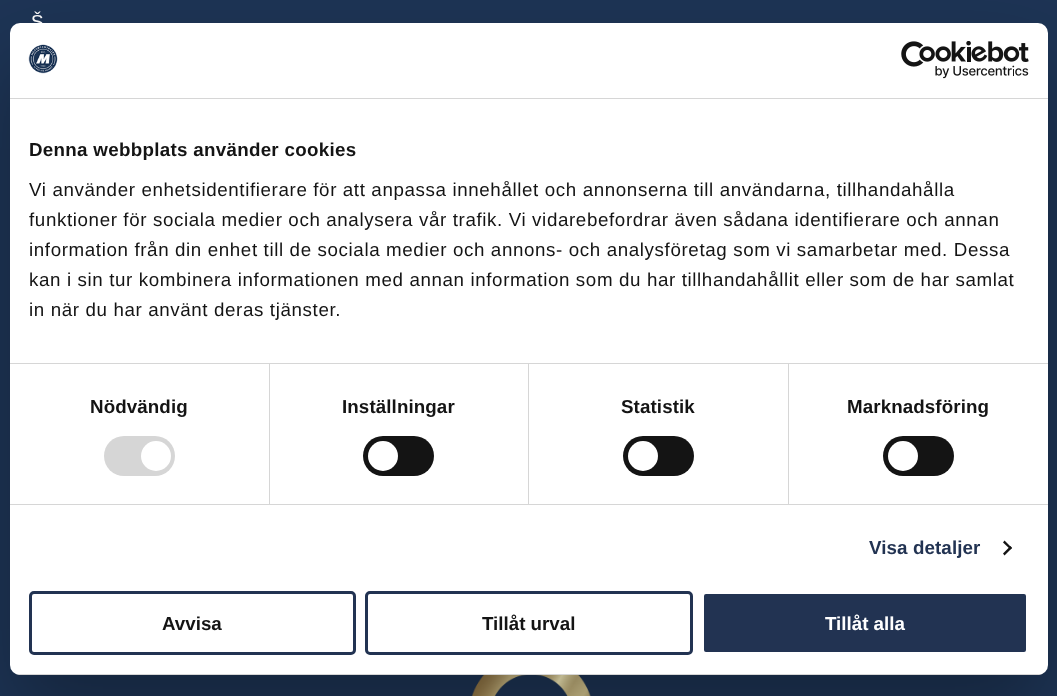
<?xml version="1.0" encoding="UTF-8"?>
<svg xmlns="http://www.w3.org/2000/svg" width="1057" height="696">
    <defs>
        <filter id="blur1" x="-50%" y="-200%" width="200%" height="500%"><feGaussianBlur stdDeviation="42.5"/></filter>
        <clipPath id="clip1"><rect x="10" y="23" width="1038" height="652" rx="10"/></clipPath>
    </defs>
    <rect width="100%" height="100%" fill="#1D3455"/>
    <text x="31" y="28" font-family="Liberation Sans" font-size="18.75" fill="#FFFFFF">Š</text>
    <image x="471" y="675" width="120" height="21" href="img_01.png"/>
    <rect x="10" y="63" width="1038" height="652" rx="10" fill="#000000" fill-opacity="0.3" filter="url(#blur1)"/>
    <rect x="10" y="23" width="1038" height="652" rx="10" fill="#FFFFFF"/>
    <rect x="10" y="98" width="1038" height="1" fill="#D6D6D6"/>
    <image x="28" y="44" width="30" height="30" href="img_02.png"/>
    <image x="901" y="41" width="128" height="38" href="img_03.png"/>
    <rect x="10" y="363" width="1038" height="1" fill="#D6D6D6"/>
    <text x="29" y="156" font-family="Liberation Sans" font-size="18.75" font-weight="700" letter-spacing="0.3" fill="#141414">Denna webbplats använder cookies</text>
    <text font-family="Liberation Sans" font-size="18.75" letter-spacing="0.62" fill="#141414">
        <tspan x="29" y="196">Vi använder enhetsidentifierare för att anpassa innehållet och annonserna till användarna, tillhandahålla</tspan>
        <tspan x="29" y="226">funktioner för sociala medier och analysera vår trafik. Vi vidarebefordrar även sådana identifierare och annan</tspan>
        <tspan x="29" y="256">information från din enhet till de sociala medier och annons- och analysföretag som vi samarbetar med. Dessa</tspan>
        <tspan x="29" y="286">kan i sin tur kombinera informationen med annan information som du har tillhandahållit eller som de har samlat</tspan>
        <tspan x="29" y="316">in när du har använt deras tjänster.</tspan>
    </text>
    <rect x="10" y="504" width="1038" height="1" fill="#D6D6D6"/>
    <rect x="269" y="364" width="1" height="140" fill="#D6D6D6"/>
    <text x="90" y="413" font-family="Liberation Sans" font-size="18.75" font-weight="700" letter-spacing="0.1" fill="#141414">Nödvändig</text>
    <rect x="104" y="436" width="71" height="40" rx="20" fill="#D6D6D6"/>
    <circle cx="156" cy="456" r="15" fill="#FFFFFF"/>
    <rect x="528" y="364" width="1" height="140" fill="#D6D6D6"/>
    <text x="342" y="413" font-family="Liberation Sans" font-size="18.75" font-weight="700" letter-spacing="0.1" fill="#141414">Inställningar</text>
    <rect x="363" y="436" width="71" height="40" rx="20" fill="#141414"/>
    <circle cx="383" cy="456" r="15" fill="#FFFFFF"/>
    <rect x="788" y="364" width="1" height="140" fill="#D6D6D6"/>
    <text x="621" y="413" font-family="Liberation Sans" font-size="18.75" font-weight="700" letter-spacing="0.1" fill="#141414">Statistik</text>
    <rect x="623" y="436" width="71" height="40" rx="20" fill="#141414"/>
    <circle cx="643" cy="456" r="15" fill="#FFFFFF"/>
    <text x="847" y="413" font-family="Liberation Sans" font-size="18.75" font-weight="700" letter-spacing="0.1" fill="#141414">Marknadsföring</text>
    <rect x="883" y="436" width="71" height="40" rx="20" fill="#141414"/>
    <circle cx="903" cy="456" r="15" fill="#FFFFFF"/>
    <text x="869" y="554" font-family="Liberation Sans" font-size="18.75" font-weight="700" letter-spacing="0.1" fill="#223352">Visa detaljer</text>
    <path d="M 1004.5 540.5 L 1012 548 L 1010.5 549.5 L 1003 542.5 Z" fill="#141414"/>
    <path d="M 1010.5 546 L 1012 548 L 1004.5 555.5 L 1003 553.5 Z" fill="#141414"/>
    <g clip-path="url(#clip1)">
        <rect x="10" y="674" width="1038" height="1" fill="#D6D6D6"/>
    </g>
    <rect x="30.5" y="592.5" width="324" height="61" rx="3.5" fill="none" stroke="#223352" stroke-width="3"/>
    <text x="162" y="630" font-family="Liberation Sans" font-size="18.75" font-weight="700" fill="#141414">Avvisa</text>
    <rect x="366.5" y="592.5" width="325" height="61" rx="3.5" fill="none" stroke="#223352" stroke-width="3"/>
    <text x="482" y="630" font-family="Liberation Sans" font-size="18.75" font-weight="700" fill="#141414">Tillåt urval</text>
    <rect x="702.5" y="592.5" width="325" height="61" rx="3.5" fill="#223352" stroke="#FFFFFF" stroke-width="3"/>
    <text x="825" y="630" font-family="Liberation Sans" font-size="18.75" font-weight="700" fill="#FFFFFF">Tillåt alla</text>
</svg>
